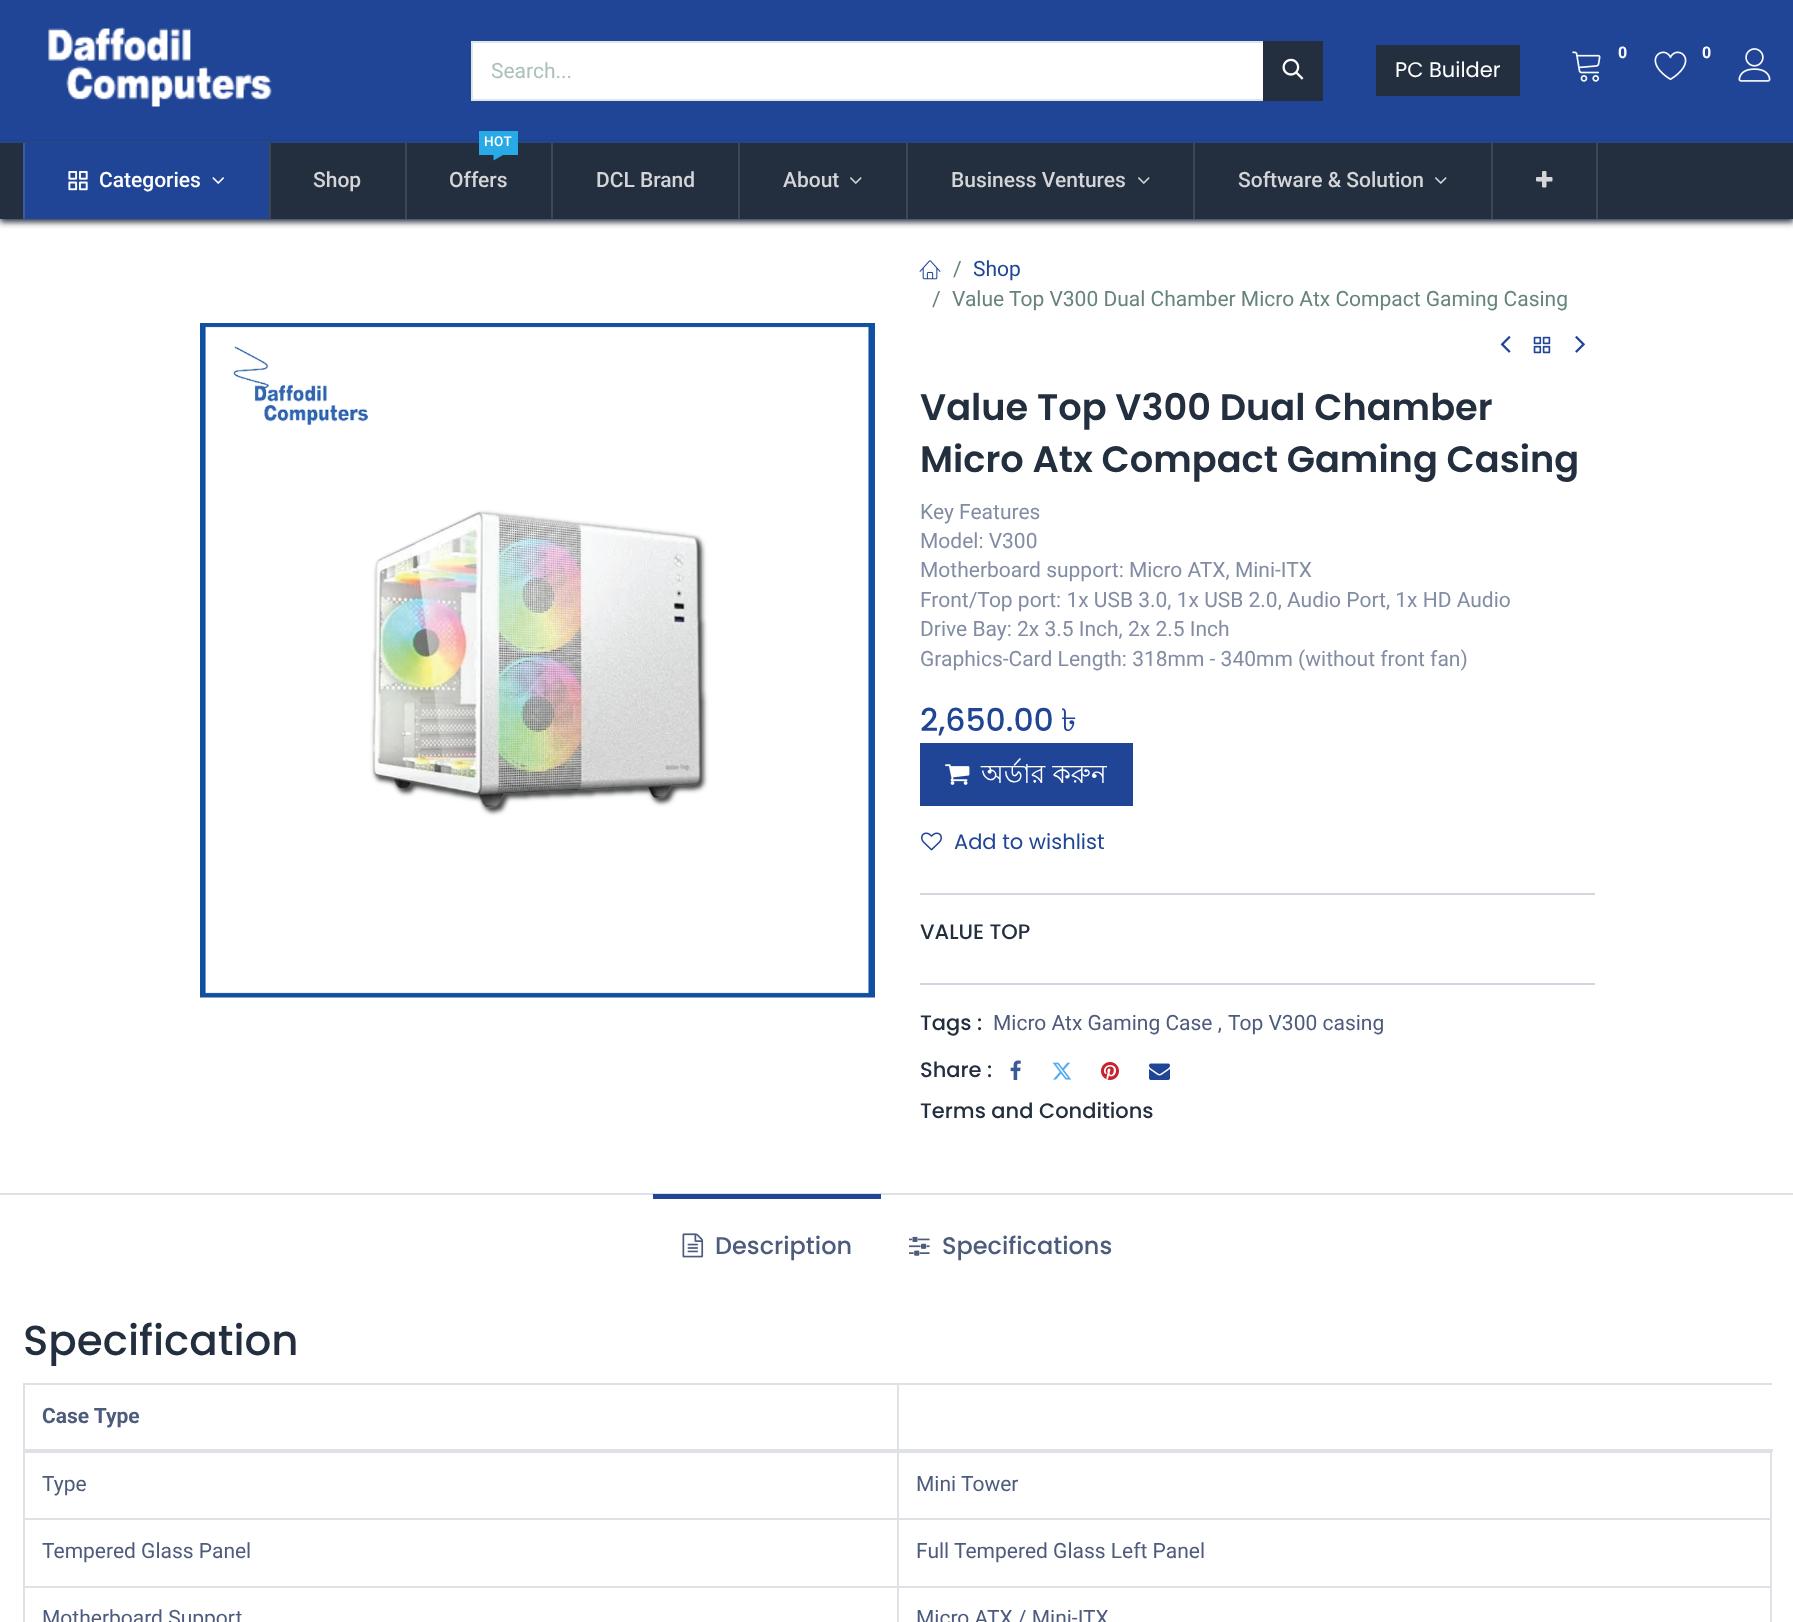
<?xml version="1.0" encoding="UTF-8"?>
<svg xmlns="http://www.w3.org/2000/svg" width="1793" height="1622">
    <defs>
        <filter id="blur1" x="-50%" y="-200%" width="200%" height="500%"><feGaussianBlur stdDeviation="3"/></filter>
    </defs>
    <rect width="100%" height="100%" fill="#FFFFFF"/>
    <rect x="0" y="0" width="1793" height="141" fill="#204596"/>
    <rect x="0" y="141" width="1793" height="2" fill="#254893"/>
    <image x="48" y="26" width="224" height="81" href="img_01.png"/>
    <rect x="472" y="42" width="792" height="58" fill="#FFFFFF" stroke="#DDE7E5" stroke-width="2"/>
    <text x="491" y="78" font-family="Roboto" font-size="21" fill="#A9C1BC">Search...</text>
    <rect x="1263" y="41" width="60" height="60" fill="#232F3E"/>
    <image x="1282" y="58" width="22" height="22" href="img_02.png"/>
    <rect x="1376" y="45" width="144" height="51" fill="#232F3E"/>
    <text x="1395" y="77" font-family="Poppins" font-size="21" fill="#FFFFFF">PC Builder</text>
    <image x="1572" y="51" width="29" height="31" href="img_03.png"/>
    <text x="1618" y="58" font-family="Roboto" font-size="16" font-weight="700" fill="#FFFFFF">0</text>
    <image x="1654" y="51" width="33" height="30" href="img_04.png"/>
    <text x="1702" y="58" font-family="Roboto" font-size="16" font-weight="700" fill="#FFFFFF">0</text>
    <image x="1738" y="48" width="33" height="34" href="img_05.png"/>
    <rect x="0" y="146" width="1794" height="76" fill="#232F3E" filter="url(#blur1)"/>
    <rect x="0" y="143" width="1793" height="76" fill="#232F3E"/>
    <rect x="25" y="143" width="244" height="76" fill="#204596"/>
    <rect x="23" y="143" width="2" height="76" fill="#3B5BA3"/>
    <image x="68" y="171" width="20" height="20" href="img_06.png"/>
    <text x="99" y="187" font-family="Roboto" font-size="21" font-weight="500" fill="#FFFFFF">Categories</text>
    <image x="212" y="177" width="12" height="7" href="img_07.png"/>
    <rect x="269" y="143" width="2" height="76" fill="#3D4855"/>
    <text x="313" y="187" font-family="Roboto" font-size="21" font-weight="500" fill="#D3D5D8">Shop</text>
    <rect x="405" y="143" width="2" height="76" fill="#3D4855"/>
    <rect x="479" y="131" width="39" height="24" fill="#28AAE7"/>
    <text x="484" y="146" font-family="Roboto" font-size="13.5" font-weight="500" letter-spacing="0.5" fill="#FFFFFF">HOT</text>
    <path d="M 493.5 154.5 H 504 L 493.5 160.5 Z" fill="#28AAE7"/>
    <text x="449" y="187" font-family="Roboto" font-size="21" font-weight="500" fill="#D3D5D8">Offers</text>
    <rect x="551" y="143" width="2" height="76" fill="#3D4855"/>
    <text x="596" y="187" font-family="Roboto" font-size="21" font-weight="500" fill="#D3D5D8">DCL Brand</text>
    <rect x="738" y="143" width="2" height="76" fill="#3D4855"/>
    <text x="783" y="187" font-family="Roboto" font-size="21" font-weight="500" fill="#D3D5D8">About</text>
    <image x="850" y="177" width="12" height="7" href="img_08.png"/>
    <rect x="906" y="143" width="2" height="76" fill="#3D4855"/>
    <text x="951" y="187" font-family="Roboto" font-size="21" font-weight="500" fill="#D3D5D8">Business Ventures</text>
    <image x="1138" y="177" width="12" height="7" href="img_08.png"/>
    <rect x="1193" y="143" width="2" height="76" fill="#3D4855"/>
    <text x="1238" y="187" font-family="Roboto" font-size="21" font-weight="500" fill="#D3D5D8">Software &amp; Solution</text>
    <image x="1435" y="177" width="12" height="7" href="img_08.png"/>
    <rect x="1596" y="143" width="2" height="76" fill="#3D4855"/>
    <rect x="1491" y="143" width="2" height="76" fill="#3D4855"/>
    <image x="1536" y="171" width="17" height="17" href="img_09.png"/>
    <image x="200" y="323" width="675" height="675" href="img_10.png"/>
    <image x="919" y="260" width="22" height="20" href="img_11.png"/>
    <text x="953" y="276" font-family="Roboto" font-size="21" fill="#66837E">/</text>
    <text x="973" y="276" font-family="Roboto" font-size="21" fill="#204596">Shop</text>
    <text x="932" y="306" font-family="Roboto" font-size="21" fill="#66837E">/</text>
    <text x="952" y="306" font-family="Roboto" font-size="21" fill="#66837E">Value Top V300 Dual Chamber Micro Atx Compact Gaming Casing</text>
    <image x="1500" y="336" width="11" height="17" href="img_12.png"/>
    <image x="1533" y="336" width="18" height="18" href="img_13.png"/>
    <image x="1575" y="336" width="10" height="17" href="img_14.png"/>
    <text font-family="Poppins" font-size="36.75" font-weight="600" fill="#232F3E">
        <tspan x="920" y="420">Value Top V300 Dual Chamber</tspan>
        <tspan x="920" y="472">Micro Atx Compact Gaming Casing</tspan>
    </text>
    <text font-family="Roboto" font-size="21" fill="#828CA3">
        <tspan x="920" y="519">Key Features</tspan>
        <tspan x="920" y="548">Model: V300</tspan>
        <tspan x="920" y="577">Motherboard support: Micro ATX, Mini-ITX</tspan>
        <tspan x="920" y="607">Front/Top port: 1x USB 3.0, 1x USB 2.0, Audio Port, 1x HD Audio</tspan>
        <tspan x="920" y="636">Drive Bay: 2x 3.5 Inch, 2x 2.5 Inch</tspan>
        <tspan x="920" y="666">Graphics-Card Length: 318mm - 340mm (without front fan)</tspan>
    </text>
    <text x="920" y="731" font-family="Poppins" font-size="31.5" font-weight="500" fill="#204596">2,650.00</text>
    <text x="1061" y="731" font-family="Lohit Bengali" font-size="31.5" fill="#204596">৳</text>
    <rect x="920" y="743" width="213" height="63" fill="#204596"/>
    <image x="945" y="764" width="25" height="21" href="img_15.png"/>
    <text x="981" y="783" font-family="Lohit Bengali" font-size="26.25" fill="#FFFFFF">অর্ডার করুন</text>
    <image x="921" y="832" width="21" height="19" href="img_16.png"/>
    <text x="954" y="849" font-family="Poppins" font-size="21" fill="#204596">Add to wishlist</text>
    <rect x="920" y="893" width="675" height="2" fill="#D3D6DE"/>
    <text x="920" y="939" font-family="Poppins" font-size="21" font-weight="500" fill="#232F3E">VALUE TOP</text>
    <rect x="920" y="983" width="675" height="2" fill="#D3D6DE"/>
    <text x="920" y="1030" font-family="Poppins" font-size="21" font-weight="500" fill="#232F3E">Tags :</text>
    <text x="993" y="1030" font-family="Roboto" font-size="21" fill="#4D5B7C">Micro Atx Gaming Case ,</text>
    <text x="1228" y="1030" font-family="Roboto" font-size="21" fill="#4D5B7C">Top V300 casing</text>
    <text x="920" y="1077" font-family="Poppins" font-size="21" font-weight="500" fill="#232F3E">Share :</text>
    <image x="1010" y="1060" width="11" height="20" href="img_17.png"/>
    <image x="1052" y="1062" width="20" height="18" href="img_18.png"/>
    <image x="1101" y="1062" width="18" height="18" href="img_19.png"/>
    <image x="1149" y="1063" width="21" height="17" href="img_20.png"/>
    <text x="920" y="1118" font-family="Poppins" font-size="21" font-weight="500" fill="#232F3E">Terms and Conditions</text>
    <rect x="0" y="1193" width="1793" height="2" fill="#DEE2E6"/>
    <rect x="653" y="1194" width="228" height="5" fill="#204596"/>
    <image x="682" y="1233" width="22" height="25" href="img_21.png"/>
    <text x="715" y="1254" font-family="Poppins" font-size="24" font-weight="500" fill="#4D5B7C">Description</text>
    <image x="909" y="1236" width="21" height="20" href="img_22.png"/>
    <text x="942" y="1254" font-family="Poppins" font-size="24" font-weight="500" fill="#4D5B7C">Specifications</text>
    <text x="23" y="1355" font-family="Poppins" font-size="42" font-weight="500" fill="#232F3E">Specification</text>
    <rect x="23" y="1383" width="1749" height="2" fill="#DEE2E6"/>
    <text x="42" y="1423" font-family="Roboto" font-size="21" font-weight="700" fill="#4D5B7C">Case Type</text>
    <rect x="23" y="1452" width="1749" height="1" fill="#DEE2E6"/>
    <rect x="23" y="1518" width="1749" height="2" fill="#DEE2E6"/>
    <rect x="23" y="1586" width="1749" height="2" fill="#DEE2E6"/>
    <rect x="23" y="1383" width="2" height="239" fill="#DEE2E6"/>
    <rect x="1770" y="1451" width="2" height="171" fill="#DEE2E6"/>
    <rect x="897" y="1383" width="2" height="239" fill="#DEE2E6"/>
    <rect x="23" y="1449" width="1750" height="3" fill="#DEE2E6"/>
    <text x="42" y="1491" font-family="Roboto" font-size="21" fill="#4D5B7C">Type</text>
    <text x="916" y="1491" font-family="Roboto" font-size="21" fill="#4D5B7C">Mini Tower</text>
    <text x="42" y="1558" font-family="Roboto" font-size="21" fill="#4D5B7C">Tempered Glass Panel</text>
    <text x="916" y="1558" font-family="Roboto" font-size="21" fill="#4D5B7C">Full Tempered Glass Left Panel</text>
    <text x="42" y="1625" font-family="Roboto" font-size="21" fill="#4D5B7C">Motherboard Support</text>
    <text x="916" y="1625" font-family="Roboto" font-size="21" fill="#4D5B7C">Micro ATX / Mini-ITX</text>
</svg>
